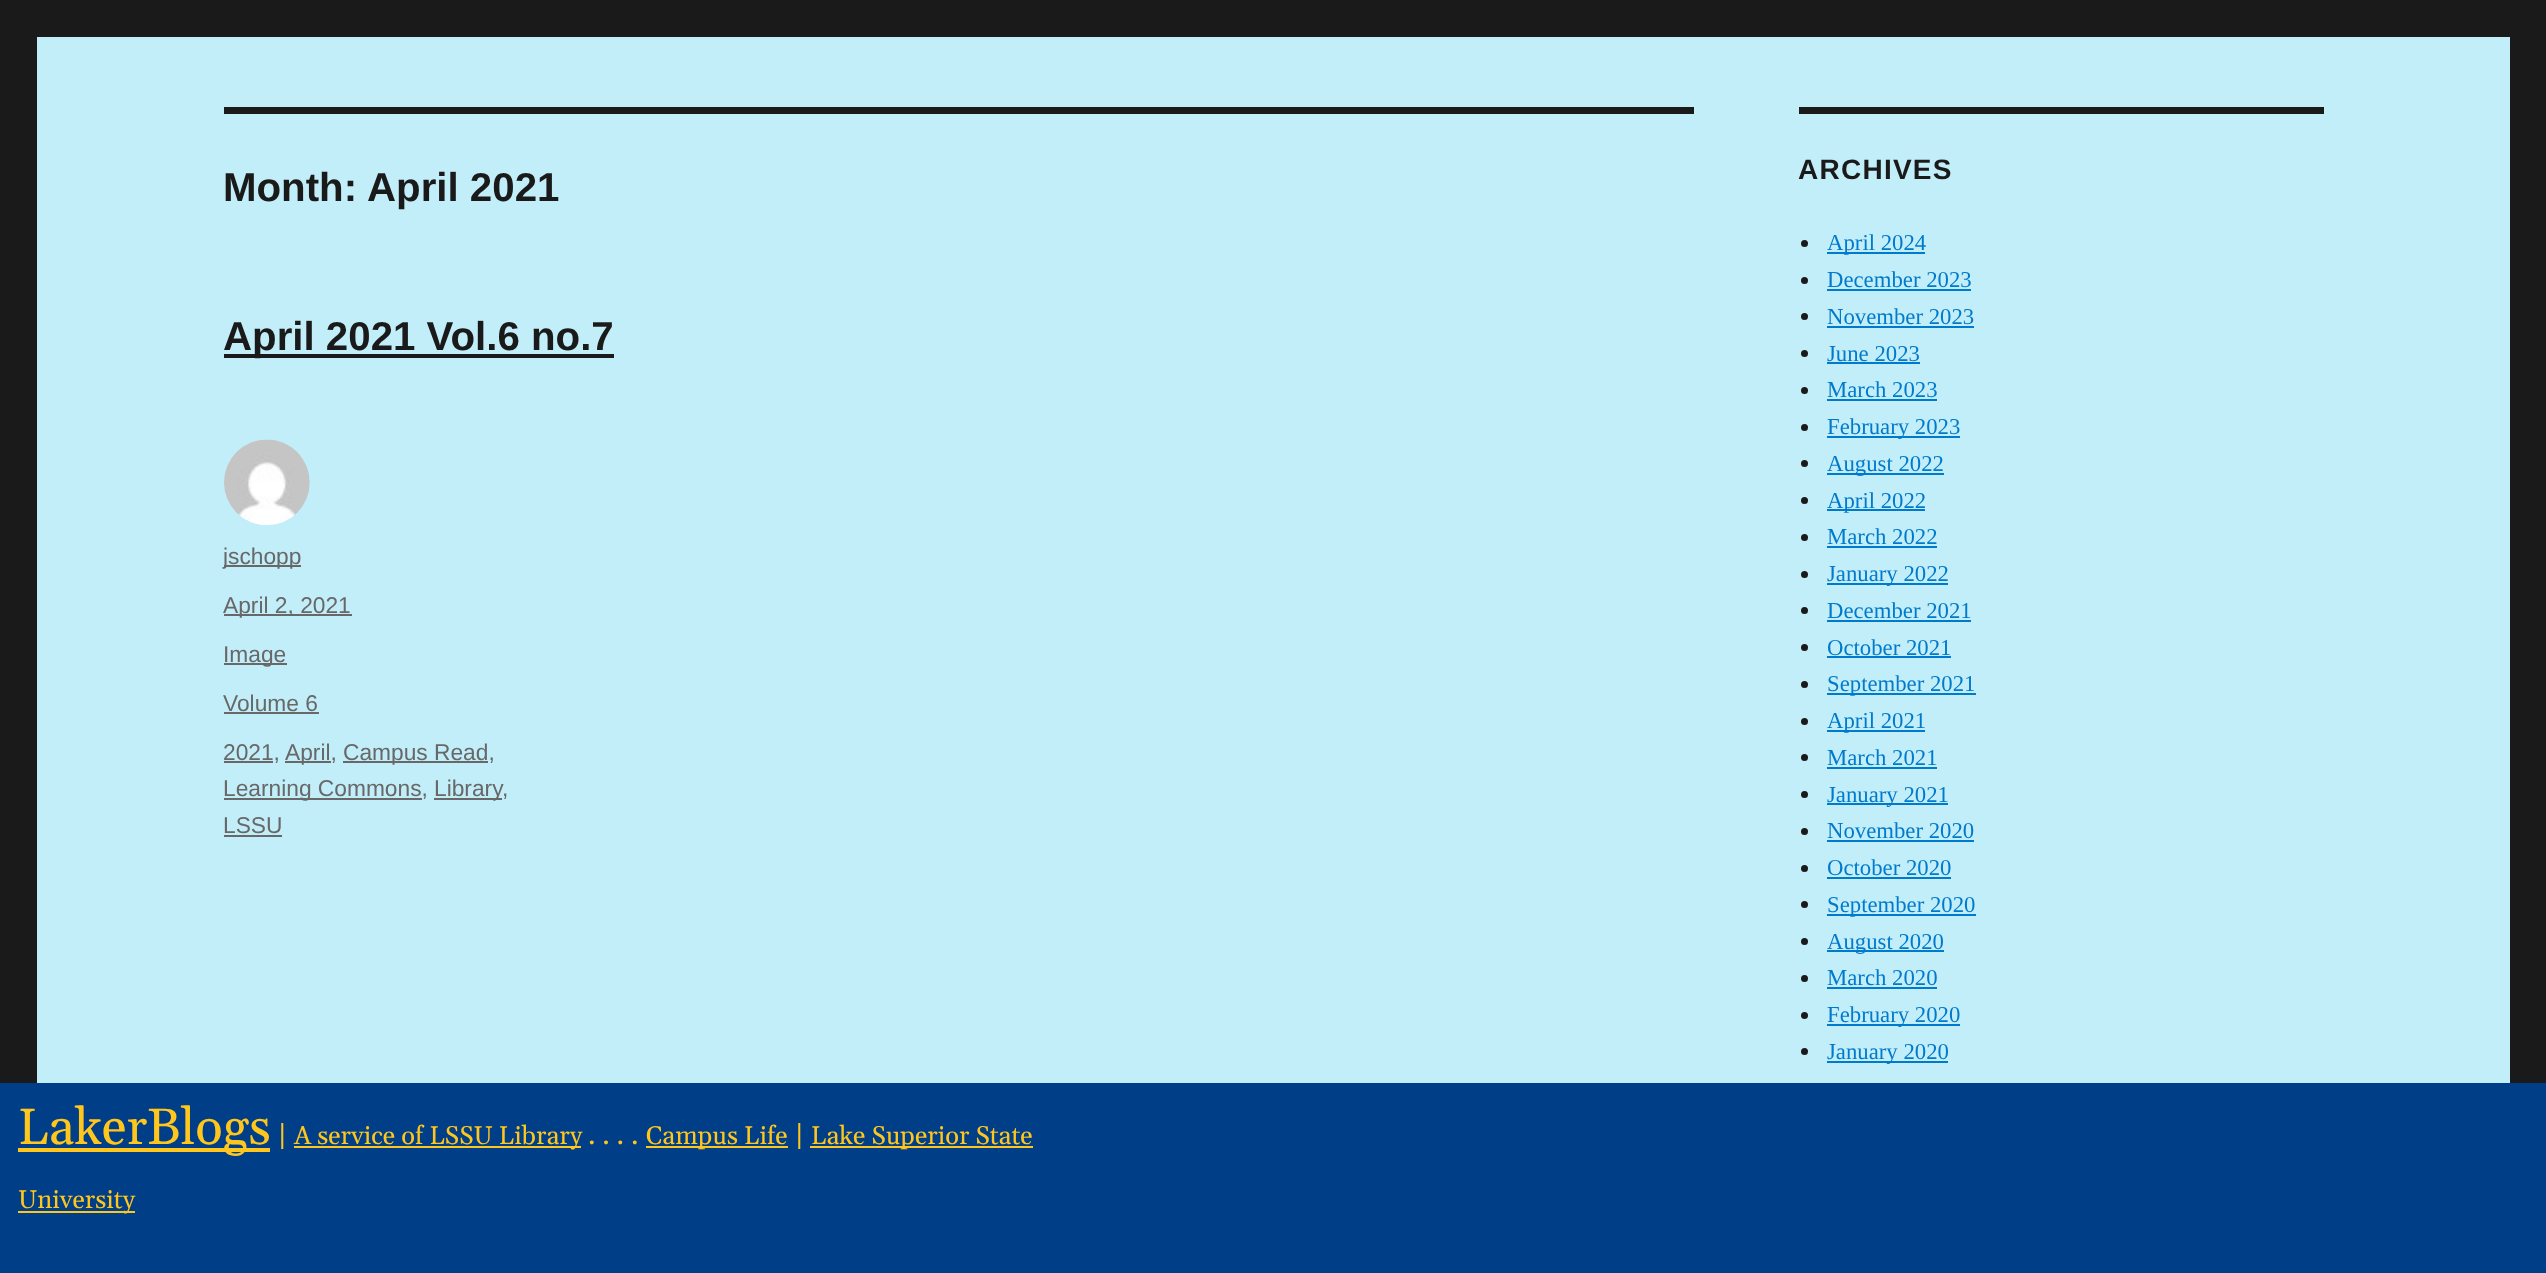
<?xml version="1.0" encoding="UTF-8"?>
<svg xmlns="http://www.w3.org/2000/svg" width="2546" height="1273">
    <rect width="100%" height="100%" fill="#1A1A1A"/>
    <rect x="37" y="37" width="2473" height="1046" fill="#C2EEF9"/>
    <rect x="224" y="107" width="1470" height="7" fill="#1A1A1A"/>
    <text x="223" y="201" font-family="Liberation Sans" font-size="40.25" font-weight="700" fill="#1A1A1A">Month:</text>
    <text x="367" y="201" font-family="Liberation Sans" font-size="40.25" font-weight="700" fill="#1A1A1A">April 2021</text>
    <rect x="224" y="354" width="390" height="4" fill="#1A1A1A"/>
    <text x="223" y="350" font-family="Liberation Sans" font-size="40.25" font-weight="700" fill="#1A1A1A">April 2021 Vol.6 no.7</text>
    <image x="224" y="439" width="86" height="86" href="img_01.png"/>
    <rect x="224" y="565" width="77" height="2" fill="#686868"/>
    <text x="223" y="564" font-family="Liberation Sans" font-size="22.75" fill="#686868">jschopp</text>
    <rect x="224" y="614" width="128" height="2" fill="#686868"/>
    <text x="223" y="613" font-family="Liberation Sans" font-size="22.75" fill="#686868">April 2, 2021</text>
    <rect x="224" y="663" width="63" height="2" fill="#686868"/>
    <text x="223" y="662" font-family="Liberation Sans" font-size="22.75" fill="#686868">Image</text>
    <text x="223" y="711" font-family="Liberation Sans" font-size="22.75" fill="#686868">Volume 6</text>
    <rect x="224" y="712" width="95" height="2" fill="#686868"/>
    <rect x="224" y="761" width="49" height="2" fill="#686868"/>
    <text x="223" y="760" font-family="Liberation Sans" font-size="22.75" fill="#686868">2021,</text>
    <rect x="285" y="761" width="46" height="2" fill="#686868"/>
    <text x="285" y="760" font-family="Liberation Sans" font-size="22.75" fill="#686868">April,</text>
    <rect x="343" y="761" width="145" height="2" fill="#686868"/>
    <text x="343" y="760" font-family="Liberation Sans" font-size="22.75" fill="#686868">Campus Read,</text>
    <rect x="224" y="798" width="198" height="2" fill="#686868"/>
    <text x="223" y="796" font-family="Liberation Sans" font-size="22.75" fill="#686868">Learning Commons,</text>
    <rect x="434" y="798" width="68" height="2" fill="#686868"/>
    <text x="434" y="796" font-family="Liberation Sans" font-size="22.75" fill="#686868">Library</text>
    <text x="502" y="796" font-family="Liberation Sans" font-size="22.75" fill="#686868">,</text>
    <text x="223" y="833" font-family="Liberation Sans" font-size="22.75" fill="#686868">LSSU</text>
    <rect x="224" y="835" width="58" height="2" fill="#686868"/>
    <rect x="1799" y="107" width="525" height="7" fill="#1A1A1A"/>
    <text x="1798" y="179" font-family="Liberation Sans" font-size="28" font-weight="700" letter-spacing="1.25" fill="#1A1A1A">ARCHIVES</text>
    <circle cx="1804.5" cy="243.5" r="3.5" fill="#1A1A1A"/>
    <rect x="1827" y="252" width="98" height="2" fill="#007ACC"/>
    <text x="1827" y="250" font-family="Liberation Serif" font-size="22.75" fill="#007ACC">April 2024</text>
    <circle cx="1804.5" cy="280.5" r="3.5" fill="#1A1A1A"/>
    <text x="1827" y="287" font-family="Liberation Serif" font-size="22.75" fill="#007ACC">December 2023</text>
    <rect x="1827" y="289" width="144" height="2" fill="#007ACC"/>
    <circle cx="1804.5" cy="316.5" r="3.5" fill="#1A1A1A"/>
    <text x="1827" y="324" font-family="Liberation Serif" font-size="22.75" fill="#007ACC">November 2023</text>
    <rect x="1827" y="326" width="147" height="2" fill="#007ACC"/>
    <circle cx="1804.5" cy="353.5" r="3.5" fill="#1A1A1A"/>
    <text x="1827" y="361" font-family="Liberation Serif" font-size="22.75" fill="#007ACC">June 2023</text>
    <rect x="1827" y="362" width="93" height="2" fill="#007ACC"/>
    <circle cx="1804.5" cy="390.5" r="3.5" fill="#1A1A1A"/>
    <text x="1827" y="397" font-family="Liberation Serif" font-size="22.75" fill="#007ACC">March 2023</text>
    <rect x="1827" y="399" width="110" height="2" fill="#007ACC"/>
    <circle cx="1804.5" cy="427.5" r="3.5" fill="#1A1A1A"/>
    <rect x="1827" y="436" width="133" height="2" fill="#007ACC"/>
    <text x="1827" y="434" font-family="Liberation Serif" font-size="22.75" fill="#007ACC">February 2023</text>
    <circle cx="1804.5" cy="463.5" r="3.5" fill="#1A1A1A"/>
    <rect x="1827" y="473" width="117" height="2" fill="#007ACC"/>
    <text x="1827" y="471" font-family="Liberation Serif" font-size="22.75" fill="#007ACC">August 2022</text>
    <circle cx="1804.5" cy="500.5" r="3.5" fill="#1A1A1A"/>
    <rect x="1827" y="509" width="98" height="2" fill="#007ACC"/>
    <text x="1827" y="508" font-family="Liberation Serif" font-size="22.75" fill="#007ACC">April 2022</text>
    <circle cx="1804.5" cy="537.5" r="3.5" fill="#1A1A1A"/>
    <text x="1827" y="544" font-family="Liberation Serif" font-size="22.75" fill="#007ACC">March 2022</text>
    <rect x="1827" y="546" width="110" height="2" fill="#007ACC"/>
    <circle cx="1804.5" cy="574.5" r="3.5" fill="#1A1A1A"/>
    <rect x="1827" y="583" width="121" height="2" fill="#007ACC"/>
    <text x="1827" y="581" font-family="Liberation Serif" font-size="22.75" fill="#007ACC">January 2022</text>
    <circle cx="1804.5" cy="610.5" r="3.5" fill="#1A1A1A"/>
    <text x="1827" y="618" font-family="Liberation Serif" font-size="22.75" fill="#007ACC">December 2021</text>
    <rect x="1827" y="620" width="144" height="2" fill="#007ACC"/>
    <circle cx="1804.5" cy="647.5" r="3.5" fill="#1A1A1A"/>
    <text x="1827" y="655" font-family="Liberation Serif" font-size="22.75" fill="#007ACC">October 2021</text>
    <rect x="1827" y="656" width="124" height="2" fill="#007ACC"/>
    <circle cx="1804.5" cy="684.5" r="3.5" fill="#1A1A1A"/>
    <rect x="1827" y="693" width="149" height="2" fill="#007ACC"/>
    <text x="1827" y="691" font-family="Liberation Serif" font-size="22.75" fill="#007ACC">September 2021</text>
    <circle cx="1804.5" cy="721.5" r="3.5" fill="#1A1A1A"/>
    <rect x="1827" y="730" width="98" height="2" fill="#007ACC"/>
    <text x="1827" y="728" font-family="Liberation Serif" font-size="22.75" fill="#007ACC">April 2021</text>
    <circle cx="1804.5" cy="757.5" r="3.5" fill="#1A1A1A"/>
    <text x="1827" y="765" font-family="Liberation Serif" font-size="22.75" fill="#007ACC">March 2021</text>
    <rect x="1827" y="767" width="110" height="2" fill="#007ACC"/>
    <circle cx="1804.5" cy="794.5" r="3.5" fill="#1A1A1A"/>
    <rect x="1827" y="803" width="121" height="2" fill="#007ACC"/>
    <text x="1827" y="802" font-family="Liberation Serif" font-size="22.75" fill="#007ACC">January 2021</text>
    <circle cx="1804.5" cy="831.5" r="3.5" fill="#1A1A1A"/>
    <text x="1827" y="838" font-family="Liberation Serif" font-size="22.75" fill="#007ACC">November 2020</text>
    <rect x="1827" y="840" width="147" height="2" fill="#007ACC"/>
    <circle cx="1804.5" cy="868.5" r="3.5" fill="#1A1A1A"/>
    <text x="1827" y="875" font-family="Liberation Serif" font-size="22.75" fill="#007ACC">October 2020</text>
    <rect x="1827" y="877" width="124" height="2" fill="#007ACC"/>
    <circle cx="1804.5" cy="904.5" r="3.5" fill="#1A1A1A"/>
    <rect x="1827" y="914" width="149" height="2" fill="#007ACC"/>
    <text x="1827" y="912" font-family="Liberation Serif" font-size="22.75" fill="#007ACC">September 2020</text>
    <circle cx="1804.5" cy="941.5" r="3.5" fill="#1A1A1A"/>
    <rect x="1827" y="950" width="117" height="2" fill="#007ACC"/>
    <text x="1827" y="949" font-family="Liberation Serif" font-size="22.75" fill="#007ACC">August 2020</text>
    <circle cx="1804.5" cy="978.5" r="3.5" fill="#1A1A1A"/>
    <text x="1827" y="985" font-family="Liberation Serif" font-size="22.75" fill="#007ACC">March 2020</text>
    <rect x="1827" y="987" width="110" height="2" fill="#007ACC"/>
    <circle cx="1804.5" cy="1015.5" r="3.5" fill="#1A1A1A"/>
    <rect x="1827" y="1024" width="133" height="2" fill="#007ACC"/>
    <text x="1827" y="1022" font-family="Liberation Serif" font-size="22.75" fill="#007ACC">February 2020</text>
    <circle cx="1804.5" cy="1051.5" r="3.5" fill="#1A1A1A"/>
    <rect x="1827" y="1061" width="121" height="2" fill="#007ACC"/>
    <text x="1827" y="1059" font-family="Liberation Serif" font-size="22.75" fill="#007ACC">January 2020</text>
    <rect x="0" y="1083" width="2546" height="190" fill="#003F87"/>
    <rect x="18" y="1148" width="252" height="4" fill="#FFC61E"/>
    <text x="18" y="1144" font-family="Gelasio" font-size="51" fill="#FFC61E">LakerBlogs</text>
    <text x="277" y="1144" font-family="Gelasio" font-size="28" fill="#FFC61E">|</text>
    <rect x="294" y="1146" width="287" height="2" fill="#FFC61E"/>
    <text x="294" y="1144" font-family="Gelasio" font-size="25.5" fill="#FFC61E">A service of LSSU Library</text>
    <text x="588" y="1144" font-family="Gelasio" font-size="28" fill="#FFC61E">. . . .</text>
    <rect x="646" y="1146" width="142" height="2" fill="#FFC61E"/>
    <text x="646" y="1144" font-family="Gelasio" font-size="25.5" fill="#FFC61E">Campus Life</text>
    <text x="794" y="1144" font-family="Gelasio" font-size="28" fill="#FFC61E">|</text>
    <rect x="810" y="1146" width="223" height="2" fill="#FFC61E"/>
    <text x="811" y="1144" font-family="Gelasio" font-size="25.5" fill="#FFC61E">Lake Superior State</text>
    <rect x="18" y="1211" width="117" height="2" fill="#FFC61E"/>
    <text x="18" y="1208" font-family="Gelasio" font-size="25.5" fill="#FFC61E">University</text>
</svg>
